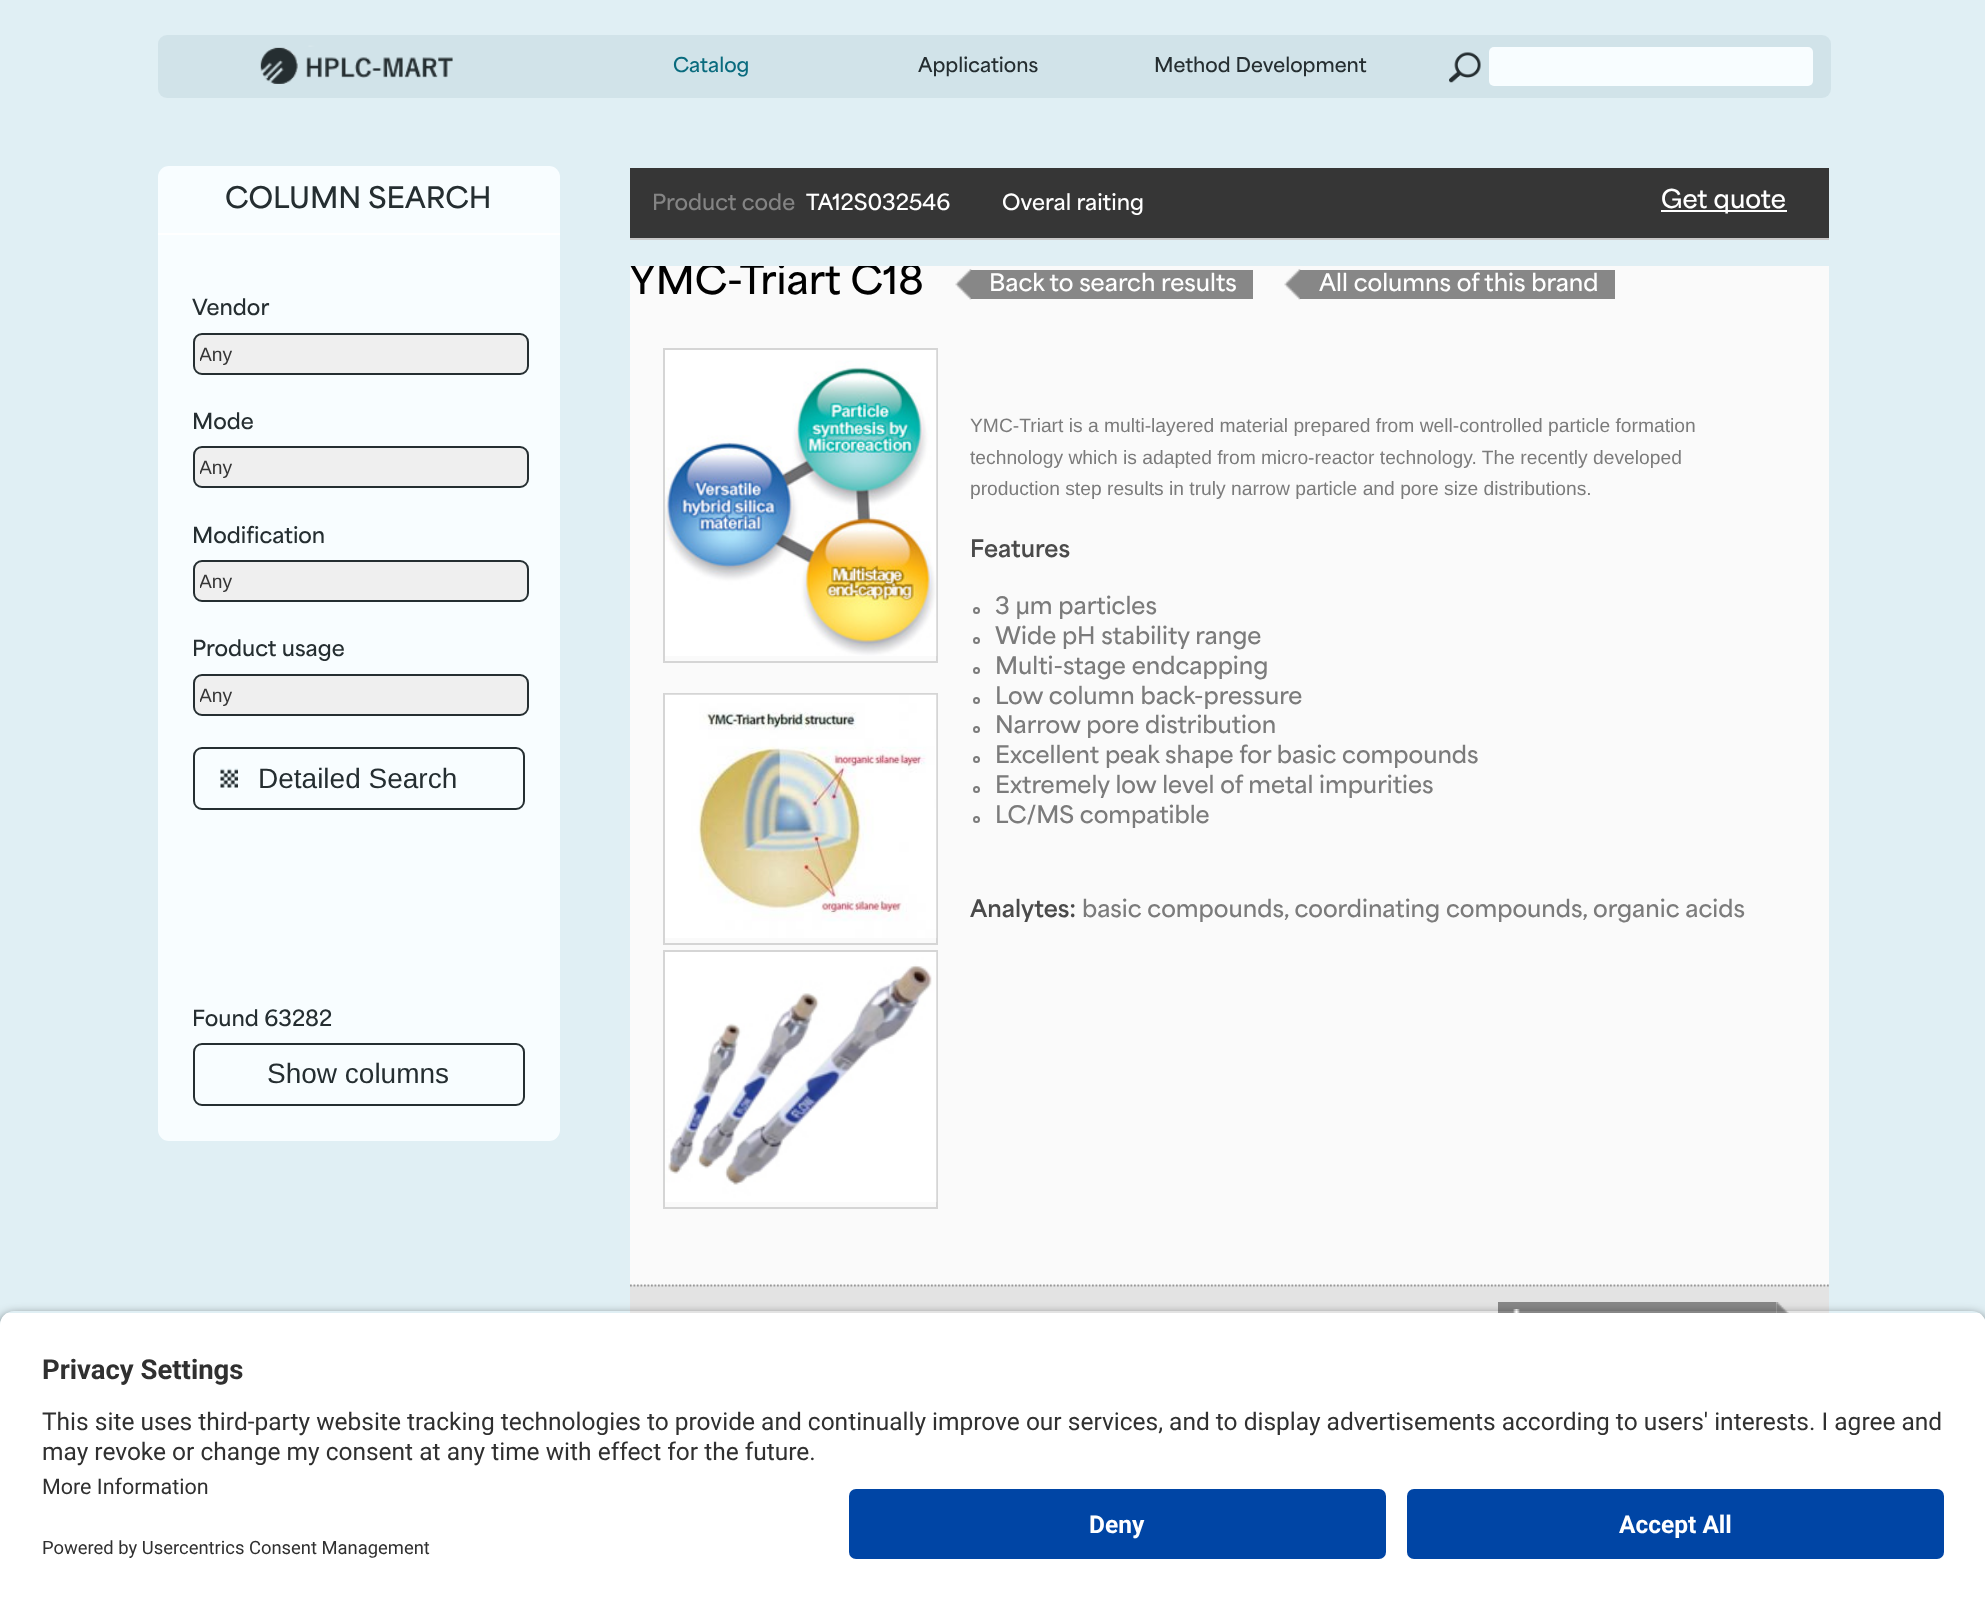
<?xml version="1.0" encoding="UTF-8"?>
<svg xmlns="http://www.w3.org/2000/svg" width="1985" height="1601">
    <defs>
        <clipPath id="clip1"><rect x="200" y="340" width="322" height="28"/></clipPath>
        <clipPath id="clip2"><rect x="200" y="453" width="322" height="28"/></clipPath>
        <clipPath id="clip3"><rect x="200" y="567" width="322" height="28"/></clipPath>
        <clipPath id="clip4"><rect x="200" y="681" width="322" height="28"/></clipPath>
        <clipPath id="clip5"><rect x="630" y="266" width="1199" height="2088"/></clipPath>
        <clipPath id="clip6"><path d="M 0 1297 H 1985 V 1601 H 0 Z M 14 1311 H 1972 C 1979.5 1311 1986 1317.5 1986 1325 V 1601 H 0 V 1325 C 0 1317.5 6.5 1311 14 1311 Z" clip-rule="evenodd"/></clipPath>
        <filter id="blur1" x="-50%" y="-200%" width="200%" height="500%"><feGaussianBlur stdDeviation="6"/></filter>
        <clipPath id="clip7"><path d="M 14 1311 H 1972 C 1979.5 1311 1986 1317.5 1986 1325 V 1475 H 0 V 1325 C 0 1317.5 6.5 1311 14 1311 Z"/></clipPath>
    </defs>
    <rect width="100%" height="100%" fill="#E0EFF4"/>
    <rect x="158" y="35" width="1673" height="63" rx="9" fill="#D1E3E9"/>
    <image x="260" y="45" width="193" height="39" href="img_01.png"/>
    <text x="673" y="72" font-family="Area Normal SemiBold" font-size="19.25" font-weight="600" fill="#096B7E">Catalog</text>
    <text x="918" y="72" font-family="Area Normal SemiBold" font-size="19.25" font-weight="600" fill="#252E31">Applications</text>
    <text x="1154" y="72" font-family="Area Normal SemiBold" font-size="19.25" font-weight="600" fill="#252E31">Method Development</text>
    <image x="1449" y="52" width="32" height="31" href="img_02.png"/>
    <rect x="1489" y="47" width="324" height="39" rx="5" fill="#F8FDFF"/>
    <rect x="158" y="166" width="402" height="975" rx="11" fill="#F8FDFF"/>
    <rect x="158" y="233" width="402" height="2" fill="#FFFFFF"/>
    <text x="225" y="208" font-family="Area Normal SemiBold" font-size="28" font-weight="600" fill="#252E31">COLUMN SEARCH</text>
    <text x="192" y="315" font-family="Area Normal SemiBold" font-size="21" font-weight="600" fill="#252E31">Vendor</text>
    <rect x="194" y="334" width="334" height="40" rx="8" fill="#EFEFEF" stroke="#252E31" stroke-width="2"/>
    <g clip-path="url(#clip1)">
        <text x="199" y="361" font-family="Liberation Sans" font-size="19.25" fill="#363636">Any</text>
    </g>
    <text x="192" y="429" font-family="Area Normal SemiBold" font-size="21" font-weight="600" fill="#252E31">Mode</text>
    <rect x="194" y="447" width="334" height="40" rx="8" fill="#EFEFEF" stroke="#252E31" stroke-width="2"/>
    <g clip-path="url(#clip2)">
        <text x="199" y="474" font-family="Liberation Sans" font-size="19.25" fill="#363636">Any</text>
    </g>
    <text x="192" y="543" font-family="Area Normal SemiBold" font-size="21" font-weight="600" fill="#252E31">Modification</text>
    <rect x="194" y="561" width="334" height="40" rx="8" fill="#EFEFEF" stroke="#252E31" stroke-width="2"/>
    <g clip-path="url(#clip3)">
        <text x="199" y="588" font-family="Liberation Sans" font-size="19.25" fill="#363636">Any</text>
    </g>
    <text x="192" y="656" font-family="Area Normal SemiBold" font-size="21" font-weight="600" fill="#252E31">Product usage</text>
    <rect x="194" y="675" width="334" height="40" rx="8" fill="#EFEFEF" stroke="#252E31" stroke-width="2"/>
    <g clip-path="url(#clip4)">
        <text x="199" y="702" font-family="Liberation Sans" font-size="19.25" fill="#363636">Any</text>
    </g>
    <image x="220" y="768" width="18" height="20" href="img_03.png"/>
    <rect x="194" y="748" width="330" height="61" rx="8" fill="none" stroke="#252E31" stroke-width="2"/>
    <text x="258" y="788" font-family="Liberation Sans" font-size="28" fill="#252E31">Detailed Search</text>
    <text x="192" y="1026" font-family="Area Normal SemiBold" font-size="21" font-weight="600" fill="#252E31">Found 63282</text>
    <rect x="194" y="1044" width="330" height="61" rx="8" fill="none" stroke="#252E31" stroke-width="2"/>
    <text x="267" y="1083" font-family="Liberation Sans" font-size="28" fill="#252E31">Show columns</text>
    <rect x="630" y="168" width="1199" height="70" fill="#363636"/>
    <rect x="630" y="238" width="1199" height="2" fill="#C8C7C7"/>
    <text x="652" y="210" font-family="Area Normal SemiBold" font-size="21" font-weight="600" fill="#848484">Product code</text>
    <text x="806" y="210" font-family="Area Normal SemiBold" font-size="21" font-weight="600" fill="#FFFFFF">TA12S032546</text>
    <text x="1002" y="210" font-family="Area Normal SemiBold" font-size="21" font-weight="600" fill="#FFFFFF">Overal raiting</text>
    <rect x="1661" y="210" width="126" height="2" fill="#FFFFFF"/>
    <text x="1661" y="208" font-family="Area Normal SemiBold" font-size="24.5" font-weight="600" fill="#FFFFFF">Get quote</text>
    <rect x="630" y="266" width="1199" height="1019" fill="#FAFAFA"/>
    <g clip-path="url(#clip5)">
        <text x="629" y="294" font-family="Area Normal SemiBold" font-size="38.5" font-weight="600" fill="#000000">YMC-Triart C18</text>
    </g>
    <rect x="971" y="270" width="282" height="29" fill="#878787"/>
    <image x="955" y="269" width="17" height="31" href="img_04.png"/>
    <text x="989" y="291" font-family="Area Normal SemiBold" font-size="22.75" font-weight="600" fill="#FFFFFF">Back to search results</text>
    <rect x="1300" y="270" width="315" height="29" fill="#878787"/>
    <image x="1284" y="269" width="17" height="31" href="img_05.png"/>
    <text x="1319" y="291" font-family="Area Normal SemiBold" font-size="22.75" font-weight="600" fill="#FFFFFF">All columns of this brand</text>
    <rect x="664" y="349" width="273" height="313" fill="none" stroke="#D5D5D5" stroke-width="2"/>
    <image x="665" y="350" width="272" height="306" href="img_06.png"/>
    <rect x="664" y="694" width="273" height="250" fill="none" stroke="#D5D5D5" stroke-width="2"/>
    <image x="665" y="694" width="272" height="244" href="img_07.png"/>
    <rect x="664" y="951" width="273" height="257" fill="none" stroke="#D5D5D5" stroke-width="2"/>
    <image x="665" y="952" width="272" height="250" href="img_08.png"/>
    <text font-family="Liberation Sans" font-size="19.25" fill="#7B7B7B">
        <tspan x="970" y="432">YMC-Triart is a multi-layered material prepared from well-controlled particle formation</tspan>
        <tspan x="970" y="464">technology which is adapted from micro-reactor technology. The recently developed</tspan>
        <tspan x="970" y="495">production step results in truly narrow particle and pore size distributions.</tspan>
    </text>
    <text x="970" y="557" font-family="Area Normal" font-size="22.75" font-weight="700" fill="#4A4A4A">Features</text>
    <circle cx="976.5" cy="610.5" r="2.5" fill="none" stroke="#7B7B7B" stroke-width="2"/>
    <text x="995" y="614" font-family="Area Normal SemiBold" font-size="22.75" font-weight="600" fill="#7B7B7B">3 µm particles</text>
    <circle cx="976.5" cy="640.5" r="2.5" fill="none" stroke="#7B7B7B" stroke-width="2"/>
    <text x="995" y="644" font-family="Area Normal SemiBold" font-size="22.75" font-weight="600" fill="#7B7B7B">Wide pH stability range</text>
    <circle cx="976.5" cy="670.5" r="2.5" fill="none" stroke="#7B7B7B" stroke-width="2"/>
    <text x="995" y="674" font-family="Area Normal SemiBold" font-size="22.75" font-weight="600" fill="#7B7B7B">Multi-stage endcapping</text>
    <circle cx="976.5" cy="700.5" r="2.5" fill="none" stroke="#7B7B7B" stroke-width="2"/>
    <text x="995" y="704" font-family="Area Normal SemiBold" font-size="22.75" font-weight="600" fill="#7B7B7B">Low column back-pressure</text>
    <circle cx="976.5" cy="729.5" r="2.5" fill="none" stroke="#7B7B7B" stroke-width="2"/>
    <text x="995" y="733" font-family="Area Normal SemiBold" font-size="22.75" font-weight="600" fill="#7B7B7B">Narrow pore distribution</text>
    <circle cx="976.5" cy="759.5" r="2.5" fill="none" stroke="#7B7B7B" stroke-width="2"/>
    <text x="995" y="763" font-family="Area Normal SemiBold" font-size="22.75" font-weight="600" fill="#7B7B7B">Excellent peak shape for basic compounds</text>
    <circle cx="976.5" cy="789.5" r="2.5" fill="none" stroke="#7B7B7B" stroke-width="2"/>
    <text x="995" y="793" font-family="Area Normal SemiBold" font-size="22.75" font-weight="600" fill="#7B7B7B">Extremely low level of metal impurities</text>
    <circle cx="976.5" cy="819.5" r="2.5" fill="none" stroke="#7B7B7B" stroke-width="2"/>
    <text x="995" y="823" font-family="Area Normal SemiBold" font-size="22.75" font-weight="600" fill="#7B7B7B">LC/MS compatible</text>
    <text x="970" y="917" font-family="Area Normal" font-size="22.75" font-weight="700" fill="#4A4A4A">Analytes:</text>
    <text x="1082" y="917" font-family="Area Normal SemiBold" font-size="22.75" font-weight="600" fill="#7B7B7B">basic compounds, coordinating compounds, organic acids</text>
    <rect x="630" y="1285" width="1199" height="28" fill="#E3E3E3"/>
    <path d="M 630 1285.5 H 1829" fill="none" stroke="#999999" stroke-width="1.8" stroke-dasharray="1.75 1.75"/>
    <rect x="1498" y="1302" width="278" height="11" fill="#878787"/>
    <image x="1508" y="1309" width="17" height="4" href="img_09.png"/>
    <image x="1776" y="1302" width="13" height="11" href="img_10.png"/>
    <g clip-path="url(#clip6)">
        <rect x="0" y="1316" width="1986" height="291" rx="14" fill="#000000" fill-opacity="0.8" filter="url(#blur1)"/>
    </g>
    <g clip-path="url(#clip7)">
        <rect x="0" y="1313" width="1985" height="162" fill="#FFFFFF"/>
    </g>
    <text x="42" y="1379" font-family="Roboto" font-size="27.5" font-weight="700" fill="#303030">Privacy Settings</text>
    <text font-family="Roboto" font-size="24.5" fill="#303030">
        <tspan x="42" y="1430">This site uses third-party website tracking technologies to provide and continually improve our services, and to display advertisements according to users' interests. I agree and</tspan>
        <tspan x="42" y="1460">may revoke or change my consent at any time with effect for the future.</tspan>
    </text>
    <rect x="0" y="1475" width="1985" height="126" fill="#FFFFFF"/>
    <text x="42" y="1494" font-family="Roboto" font-size="21.5" fill="#303030">More Information</text>
    <text x="42" y="1554" font-family="Roboto" font-size="18.4" fill="#303030">Powered by Usercentrics Consent Management</text>
    <rect x="849" y="1489" width="537" height="70" rx="7" fill="#0045A5"/>
    <text x="1089" y="1533" font-family="Roboto" font-size="24.5" font-weight="700" fill="#FFFFFF">Deny</text>
    <rect x="1407" y="1489" width="537" height="70" rx="7" fill="#0045A5"/>
    <text x="1619" y="1533" font-family="Roboto" font-size="24.5" font-weight="700" fill="#FFFFFF">Accept All</text>
</svg>
